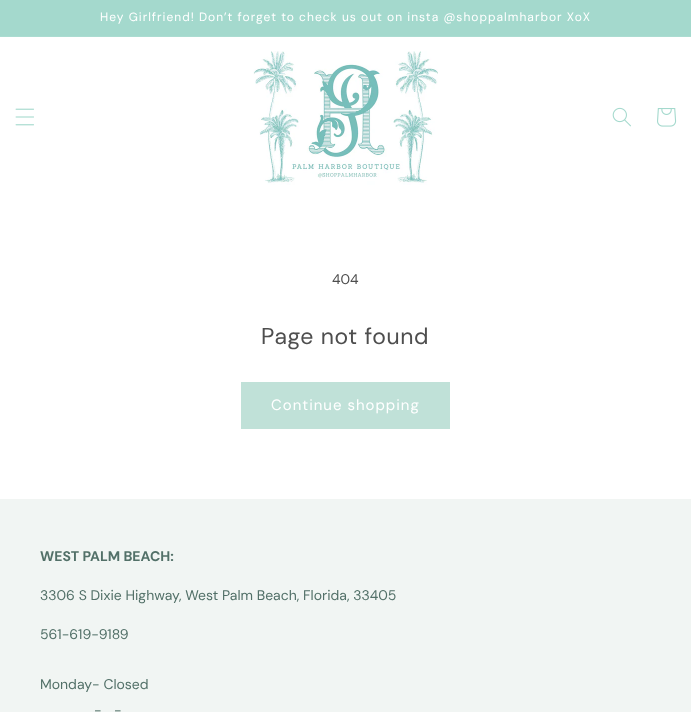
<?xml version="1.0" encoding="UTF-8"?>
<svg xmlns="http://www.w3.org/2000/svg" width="691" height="712">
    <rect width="100%" height="100%" fill="#FFFFFF"/>
    <rect x="0" y="0" width="691" height="36" fill="#A4D9CD"/>
    <rect x="0" y="36" width="691" height="1" fill="#ABDCD1"/>
    <text x="100" y="21" font-family="'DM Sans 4'" font-size="12" letter-spacing="1" fill="#FFFFFF">Hey Girlfriend! Don’t forget to check us out on insta @shoppalmharbor XoX</text>
    <image x="15" y="108" width="19" height="18" href="img_01.png"/>
    <image x="253" y="51" width="185" height="134" href="img_02.png"/>
    <image x="612" y="107" width="19" height="20" href="img_03.png"/>
    <image x="657" y="108" width="20" height="19" href="img_04.png"/>
    <text x="332" y="284" font-family="DM Sans" font-size="14" fill="#4E4E4E">404</text>
    <text x="261" y="344" font-family="'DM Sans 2'" font-size="23" letter-spacing="0.6" fill="#4E4E4E">Page not found</text>
    <rect x="241" y="382" width="209" height="47" fill="#C0E1D8"/>
    <text x="271" y="410" font-family="'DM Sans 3'" font-size="15" letter-spacing="1" fill="#FFFFFF">Continue shopping</text>
    <rect x="0" y="499" width="691" height="213" fill="#F1F5F3"/>
    <text x="40" y="561" font-family="DM Sans" font-size="14" font-weight="700" fill="#527068">WEST PALM BEACH:</text>
    <text x="40" y="600" font-family="DM Sans" font-size="14" fill="#527068">3306 S Dixie Highway, West Palm Beach, Florida, 33405</text>
    <text x="40" y="639" font-family="DM Sans" font-size="14" fill="#527068">561-619-9189</text>
    <text x="40" y="689" font-family="DM Sans" font-size="14" fill="#527068">Monday- Closed</text>
    <text x="94" y="715" font-family="DM Sans" font-size="14" fill="#527068">-</text>
    <text x="114" y="715" font-family="DM Sans" font-size="14" fill="#527068">-</text>
</svg>
